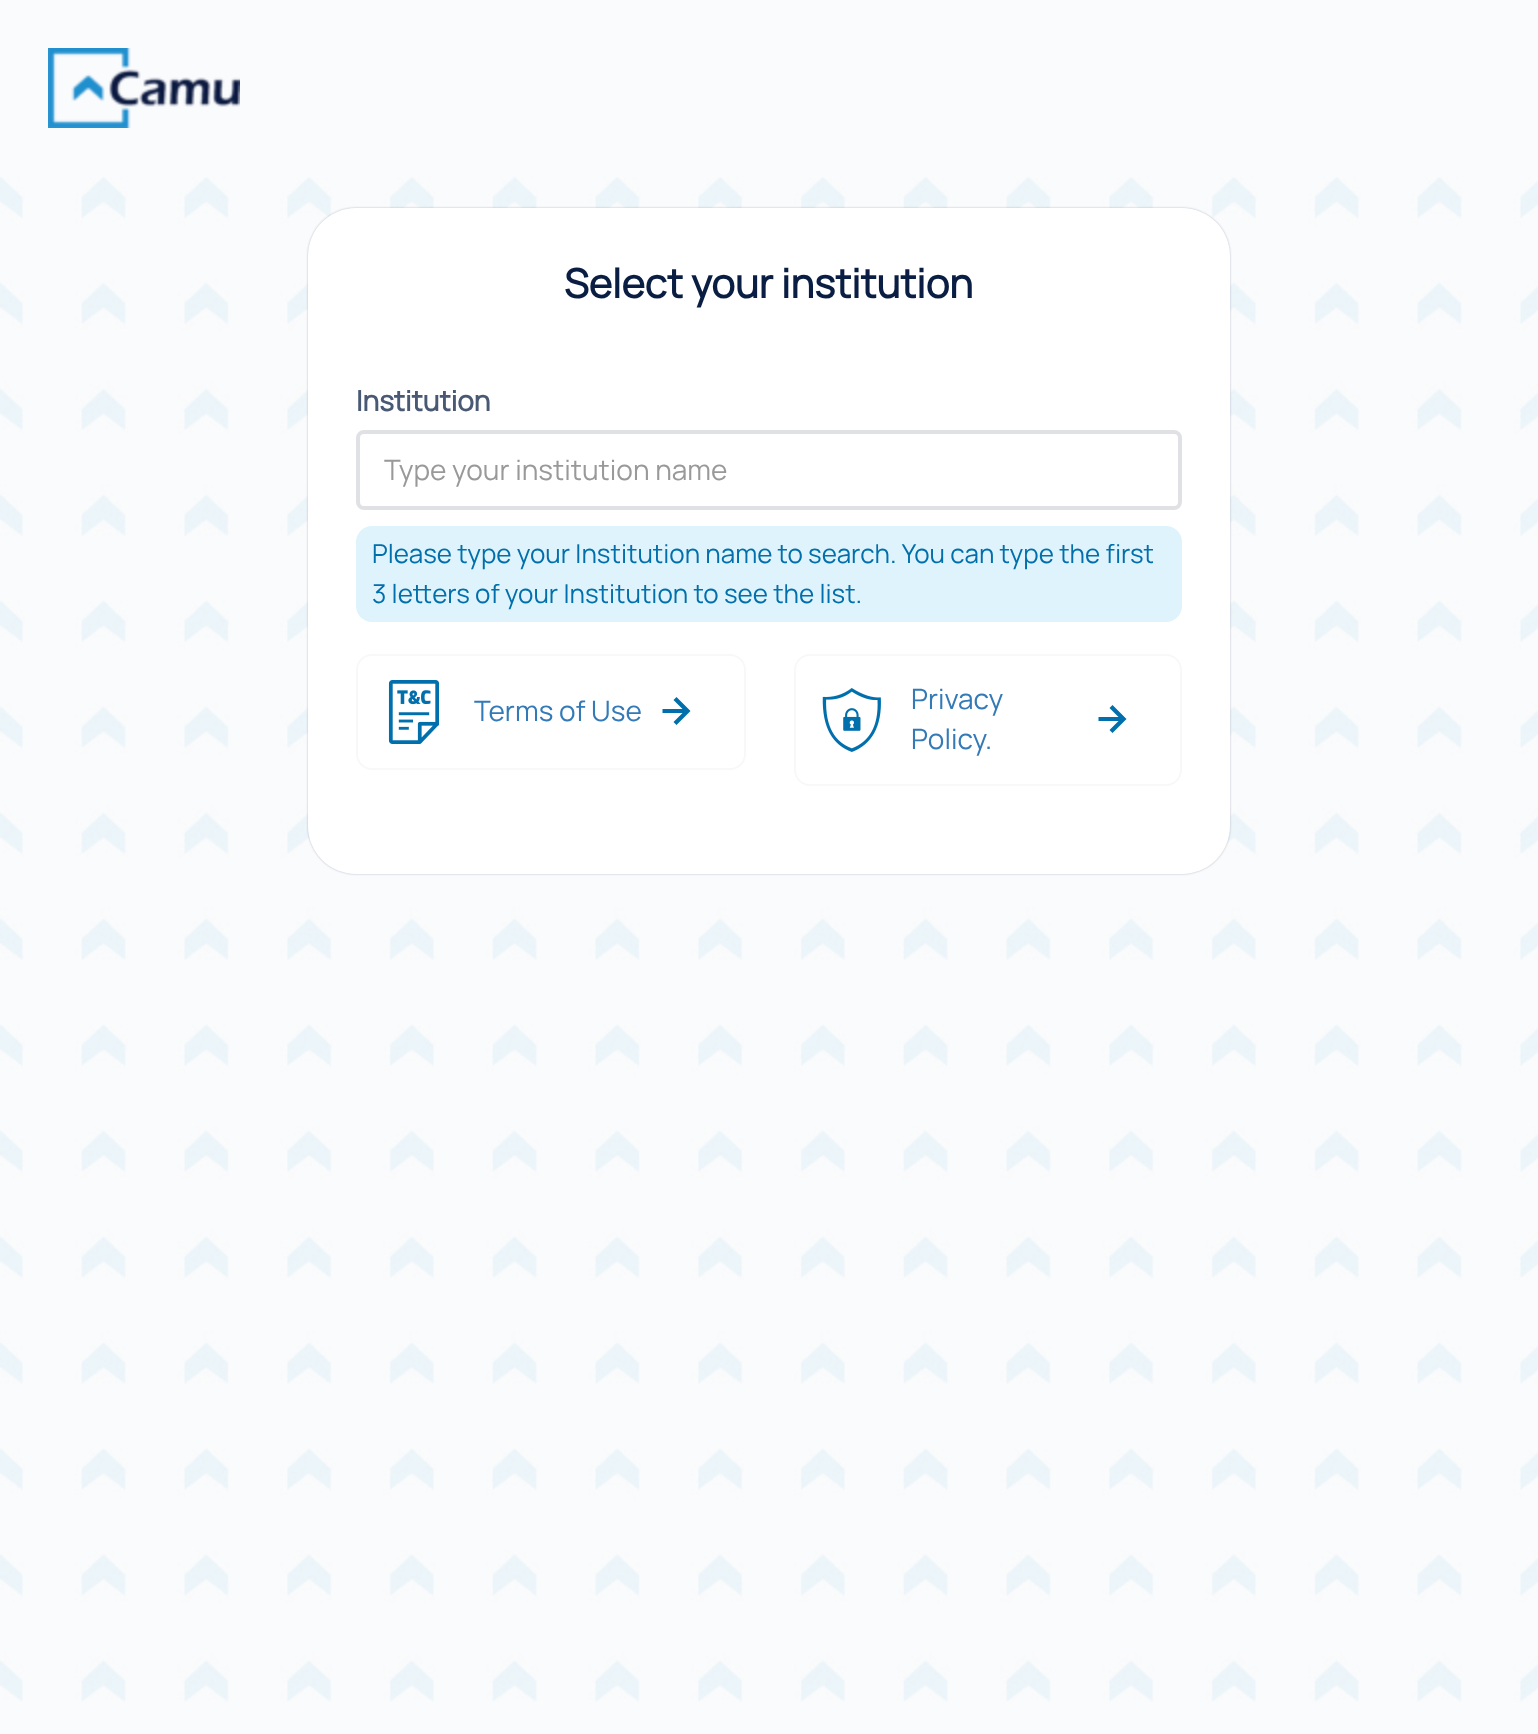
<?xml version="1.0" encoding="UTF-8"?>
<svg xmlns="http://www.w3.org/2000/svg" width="1538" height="1734">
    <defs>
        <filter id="blur1" x="-50%" y="-200%" width="200%" height="500%"><feGaussianBlur stdDeviation="1"/></filter>
    </defs>
    <rect width="100%" height="100%" fill="#FAFBFC"/>
    <image x="48" y="48" width="192" height="80" href="img_01.png"/>
    <image x="0" y="177" width="1538" height="1525" href="img_02.png"/>
    <rect x="308" y="208" width="922" height="666" rx="48" fill="#091E42" fill-opacity="0.25" filter="url(#blur1)"/>
    <rect x="308" y="208" width="922" height="666" rx="48" fill="#FFFFFF"/>
    <text x="564" y="298" font-family="Manrope" font-size="40" font-weight="700" fill="#091E42">Select your institution</text>
    <text x="356" y="411" font-family="Manrope" font-size="28" font-weight="700" fill="#495973">Institution</text>
    <rect x="358" y="432" width="822" height="76" rx="6" fill="none" stroke="#DFE1E5" stroke-width="4"/>
    <text x="384" y="480" font-family="Manrope" font-size="28" fill="#999999">Type your institution name</text>
    <rect x="356" y="526" width="826" height="96" rx="16" fill="#DEF3FB"/>
    <text font-family="Manrope" font-size="26" fill="#006FAC">
        <tspan x="372" y="563">Please type your Institution name to search. You can type the first</tspan>
        <tspan x="372" y="603">3 letters of your Institution to see the list.</tspan>
    </text>
    <rect x="357" y="655" width="388" height="114" rx="15" fill="none" stroke="#F8F8F8" stroke-width="2"/>
    <image x="388" y="680" width="52" height="64" href="img_03.png"/>
    <text x="474" y="721" font-family="Manrope" font-size="28" fill="#337AB7">Terms of Use</text>
    <path d="M 673.5 722 L 676.5 725 L 690.5 711 L 676.5 697 L 673.5 700 L 682.5 709 H 662.5 V 713 H 682.5 Z" fill="#006FAC"/>
    <rect x="795" y="655" width="386" height="130" rx="15" fill="none" stroke="#F8F8F8" stroke-width="2"/>
    <image x="822" y="688" width="59" height="64" href="img_04.png"/>
    <text font-family="Manrope" font-size="28" fill="#337AB7">
        <tspan x="911" y="709">Privacy</tspan>
        <tspan x="911" y="749">Policy.</tspan>
    </text>
    <path d="M 1109.5 730 L 1112.5 733 L 1126.5 719 L 1112.5 705 L 1109.5 708 L 1118.5 717 H 1098.5 V 721 H 1118.5 Z" fill="#006FAC"/>
</svg>
